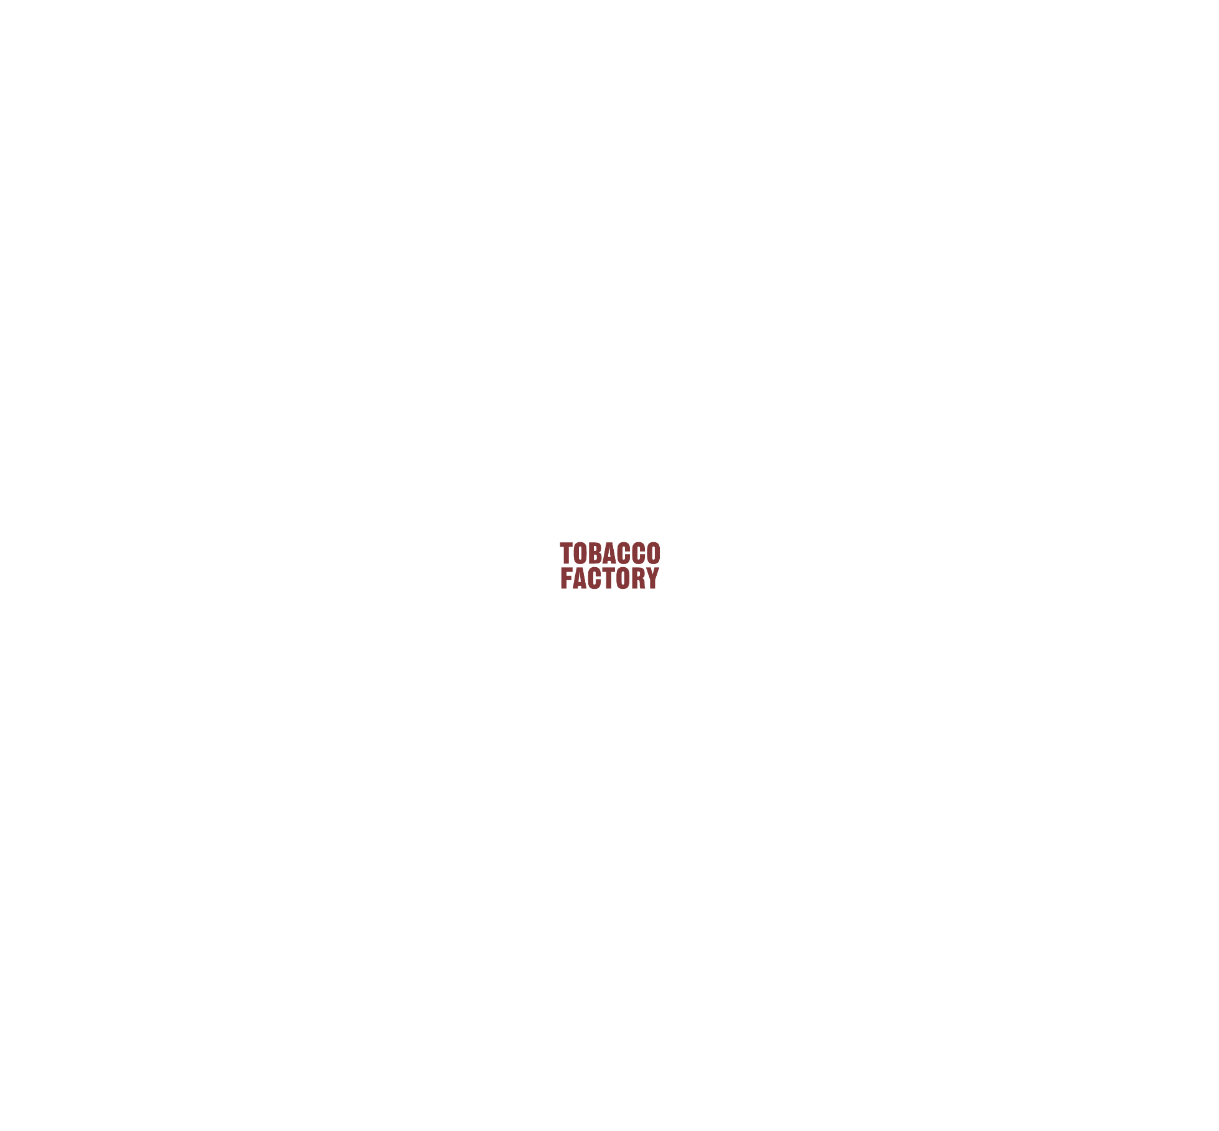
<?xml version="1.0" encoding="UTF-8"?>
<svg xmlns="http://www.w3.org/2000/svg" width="1219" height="1131">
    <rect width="100%" height="100%" fill="#FFFFFF"/>
    <image x="559" y="541" width="101" height="49" href="img_01.png"/>
</svg>
